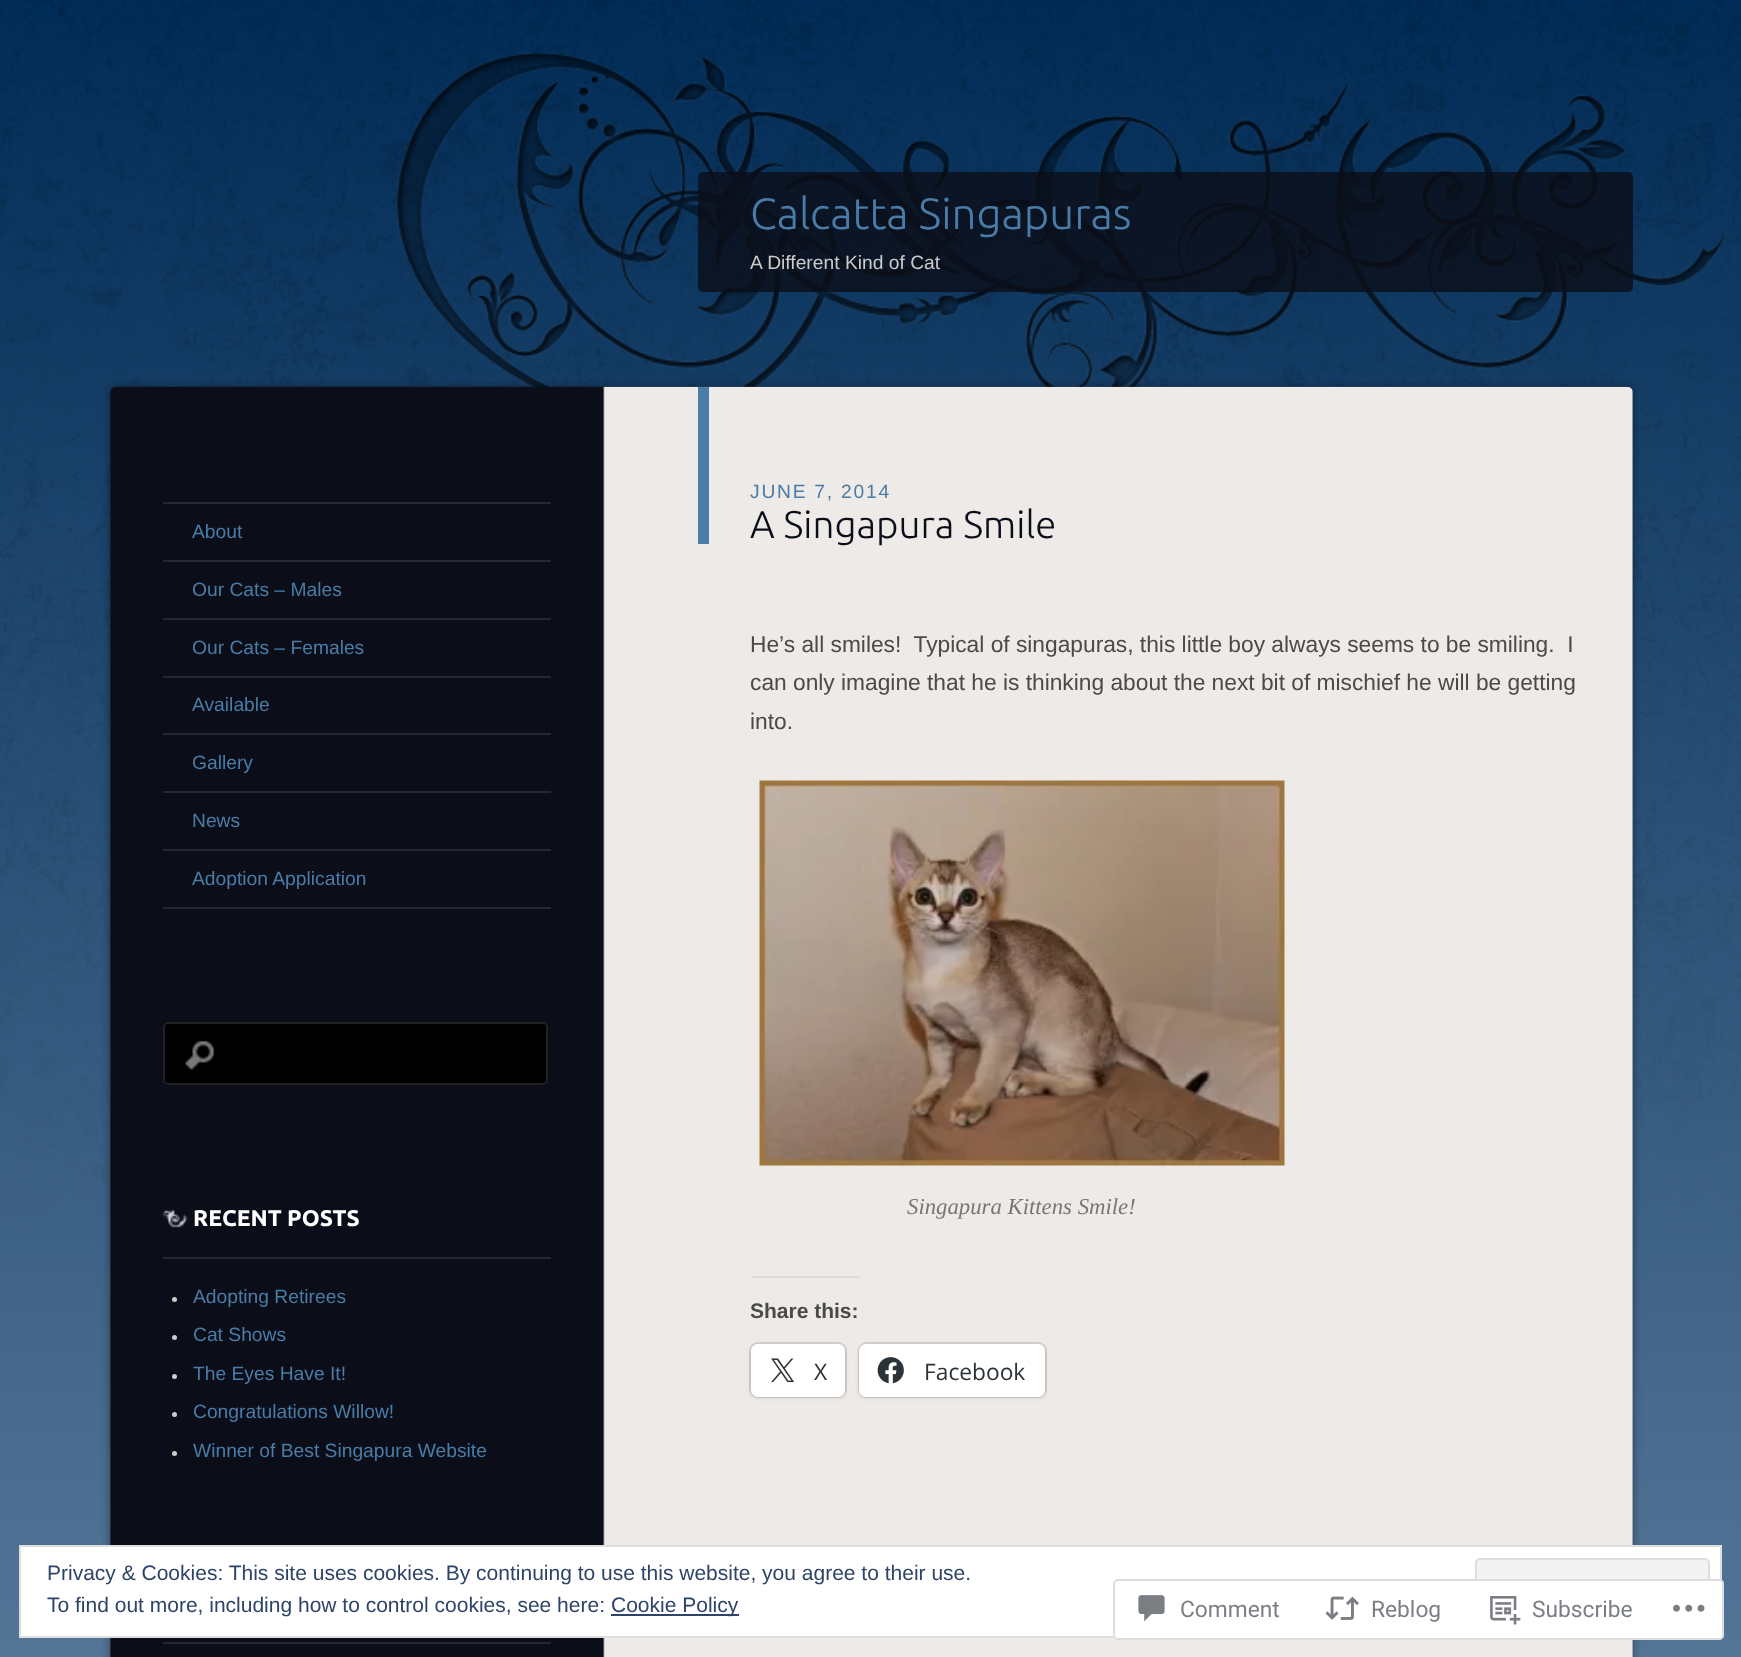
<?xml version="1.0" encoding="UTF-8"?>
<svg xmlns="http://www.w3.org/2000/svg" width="1741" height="1657">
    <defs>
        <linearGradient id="g1" gradientUnits="userSpaceOnUse" x1="0" y1="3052" x2="0" y2="0"><stop offset="0" stop-color="#FFCB70"/><stop offset="0.3" stop-color="#6B8AA9"/><stop offset="1" stop-color="#012C57"/></linearGradient>
        <filter id="blur1" x="-50%" y="-200%" width="200%" height="500%"><feGaussianBlur stdDeviation="5"/></filter>
        <filter id="blur2" x="-50%" y="-200%" width="200%" height="500%"><feGaussianBlur stdDeviation="2"/></filter>
    </defs>
    <rect width="100%" height="100%" fill="#FFFFFF"/>
    <rect x="0" y="0" width="1741" height="1657" fill="url(#g1)"/>
    <image x="0" y="0" width="1741" height="1230" href="img_01.png"/>
    <image x="396" y="52" width="1330" height="335" href="img_02.png"/>
    <rect x="698" y="172" width="935" height="120" rx="5" fill="#0B0E18" fill-opacity="0.8"/>
    <text x="750" y="229" font-family="Ubuntu" font-size="43.75" font-weight="300" fill="#497CA7">Calcatta Singapuras</text>
    <text x="750" y="269" font-family="Liberation Sans" font-size="19.25" fill="#CCCCCC">A Different Kind of Cat</text>
    <rect x="110" y="387" width="1523" height="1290" rx="5" fill="#000000" fill-opacity="0.4" filter="url(#blur1)"/>
    <image x="110" y="386" width="1523" height="1271" href="img_03.png"/>
    <rect x="163" y="502" width="388" height="2" fill="#252832"/>
    <rect x="163" y="560" width="388" height="2" fill="#252832"/>
    <text x="192" y="538" font-family="Liberation Sans" font-size="19.25" fill="#497CA7">About</text>
    <rect x="163" y="618" width="388" height="2" fill="#252832"/>
    <text x="192" y="596" font-family="Liberation Sans" font-size="19.25" fill="#497CA7">Our Cats – Males</text>
    <rect x="163" y="676" width="388" height="2" fill="#252832"/>
    <text x="192" y="654" font-family="Liberation Sans" font-size="19.25" fill="#497CA7">Our Cats – Females</text>
    <rect x="163" y="733" width="388" height="2" fill="#252832"/>
    <text x="192" y="711" font-family="Liberation Sans" font-size="19.25" fill="#497CA7">Available</text>
    <rect x="163" y="791" width="388" height="2" fill="#252832"/>
    <text x="192" y="769" font-family="Liberation Sans" font-size="19.25" fill="#497CA7">Gallery</text>
    <rect x="163" y="849" width="388" height="2" fill="#252832"/>
    <text x="192" y="827" font-family="Liberation Sans" font-size="19.25" fill="#497CA7">News</text>
    <rect x="163" y="907" width="388" height="2" fill="#252832"/>
    <text x="192" y="885" font-family="Liberation Sans" font-size="19.25" fill="#497CA7">Adoption Application</text>
    <rect x="163" y="1022" width="385" height="63" rx="5" fill="#000000"/>
    <image x="185" y="1040" width="29" height="30" href="img_04.png"/>
    <rect x="164" y="1023" width="383" height="61" rx="4" fill="none" stroke="#222222" stroke-width="2"/>
    <image x="162" y="1209" width="26" height="19" href="img_05.png"/>
    <rect x="163" y="1257" width="388" height="2" fill="#252832"/>
    <text x="193" y="1226" font-family="Ubuntu" font-size="22.75" font-weight="700" fill="#FFFFFF">RECENT POSTS</text>
    <circle cx="174.5" cy="1299.5" r="2.5" fill="#CCCCCC"/>
    <text x="193" y="1303" font-family="Liberation Sans" font-size="19.25" fill="#497CA7">Adopting Retirees</text>
    <circle cx="174.5" cy="1337.5" r="2.5" fill="#CCCCCC"/>
    <text x="193" y="1341" font-family="Liberation Sans" font-size="19.25" fill="#497CA7">Cat Shows</text>
    <circle cx="174.5" cy="1376.5" r="2.5" fill="#CCCCCC"/>
    <text x="193" y="1380" font-family="Liberation Sans" font-size="19.25" fill="#497CA7">The Eyes Have It!</text>
    <circle cx="174.5" cy="1414.5" r="2.5" fill="#CCCCCC"/>
    <text x="193" y="1418" font-family="Liberation Sans" font-size="19.25" fill="#497CA7">Congratulations Willow!</text>
    <circle cx="174.5" cy="1453.5" r="2.5" fill="#CCCCCC"/>
    <text x="193" y="1457" font-family="Liberation Sans" font-size="19.25" fill="#497CA7">Winner of Best Singapura Website</text>
    <rect x="163" y="1642" width="388" height="2" fill="#252832"/>
    <rect x="698" y="387" width="11" height="157" fill="#497CA7"/>
    <text x="750" y="498" font-family="Liberation Sans" font-size="19.25" letter-spacing="1.75" fill="#497CA7">JUNE 7, 2014</text>
    <text x="750" y="538" font-family="Ubuntu" font-size="38.5" font-weight="300" fill="#0B0E18">A Singapura Smile</text>
    <text font-family="Liberation Sans" font-size="22.75" fill="#4A4A49" xml:space="preserve"><tspan x="750" y="652">He’s all smiles!  Typical of singapuras, this little boy always seems to be smiling.  I</tspan><tspan x="750" y="690">can only imagine that he is thinking about the next bit of mischief he will be getting</tspan><tspan x="750" y="729">into.</tspan></text>
    <image x="759" y="780" width="526" height="386" href="img_06.png"/>
    <text x="907" y="1214" font-family="Liberation Serif" font-size="22.75" font-style="italic" fill="#777777">Singapura Kittens Smile!</text>
    <rect x="751" y="1276" width="108" height="2" fill="#DCDCDE"/>
    <text x="750" y="1318" font-family="Liberation Sans" font-size="21" font-weight="700" fill="#4A4A49">Share this:</text>
    <rect x="750" y="1343" width="96" height="54" rx="8" fill="none" stroke="#D1CECC" stroke-width="2"/>
    <rect x="751" y="1346" width="94" height="52" rx="7" fill="#000000" fill-opacity="0.12" filter="url(#blur2)"/>
    <rect x="751" y="1344" width="94" height="53" rx="7" fill="#FFFFFF"/>
    <image x="771" y="1358" width="23" height="25" href="img_07.png"/>
    <text x="814" y="1380" font-family="Open Sans" font-size="22.75" fill="#2C3338">X</text>
    <rect x="859" y="1343" width="187" height="54" rx="8" fill="none" stroke="#D1CECC" stroke-width="2"/>
    <rect x="859" y="1346" width="186" height="52" rx="7" fill="#000000" fill-opacity="0.12" filter="url(#blur2)"/>
    <rect x="859" y="1344" width="186" height="53" rx="7" fill="#FFFFFF"/>
    <image x="877" y="1357" width="27" height="27" href="img_08.png"/>
    <text x="924" y="1380" font-family="Open Sans" font-size="22.75" fill="#2C3338">Facebook</text>
    <rect x="20" y="1546" width="1701" height="91" fill="#FFFFFF" stroke="#DEDEDE" stroke-width="2"/>
    <text x="47" y="1580" font-family="Liberation Sans" font-size="21" fill="#2E4467">Privacy &amp; Cookies: This site uses cookies. By continuing to use this website, you agree to their use.</text>
    <rect x="1476" y="1559" width="233" height="66" rx="4" fill="#F3F3F3" stroke="#DEDEDE" stroke-width="2"/>
    <text x="47" y="1612" font-family="Liberation Sans" font-size="21" fill="#2E4467">To find out more, including how to control cookies, see here:</text>
    <rect x="611" y="1614" width="128" height="2" fill="#2E4467"/>
    <text x="611" y="1612" font-family="Liberation Sans" font-size="21" fill="#2E4467">Cookie Policy</text>
    <rect x="1113" y="1579" width="611" height="61" rx="5" fill="#FFFFFF" fill-opacity="0.98"/>
    <rect x="1114" y="1580" width="609" height="59" rx="4" fill="none" stroke="#DCDCDE" stroke-opacity="0.98" stroke-width="2"/>
    <image x="1138" y="1595" width="27" height="27" href="img_09.png"/>
    <text x="1180" y="1617" font-family="Roboto" font-size="22.75" fill="#7B7F85">Comment</text>
    <image x="1325" y="1596" width="34" height="24" href="img_10.png"/>
    <text x="1371" y="1617" font-family="Roboto" font-size="22.75" fill="#7B7F85">Reblog</text>
    <image x="1490" y="1596" width="31" height="29" href="img_11.png"/>
    <text x="1532" y="1617" font-family="Roboto" font-size="22.75" fill="#7B7F85">Subscribe</text>
    <image x="1673" y="1604" width="32" height="8" href="img_12.png"/>
</svg>
